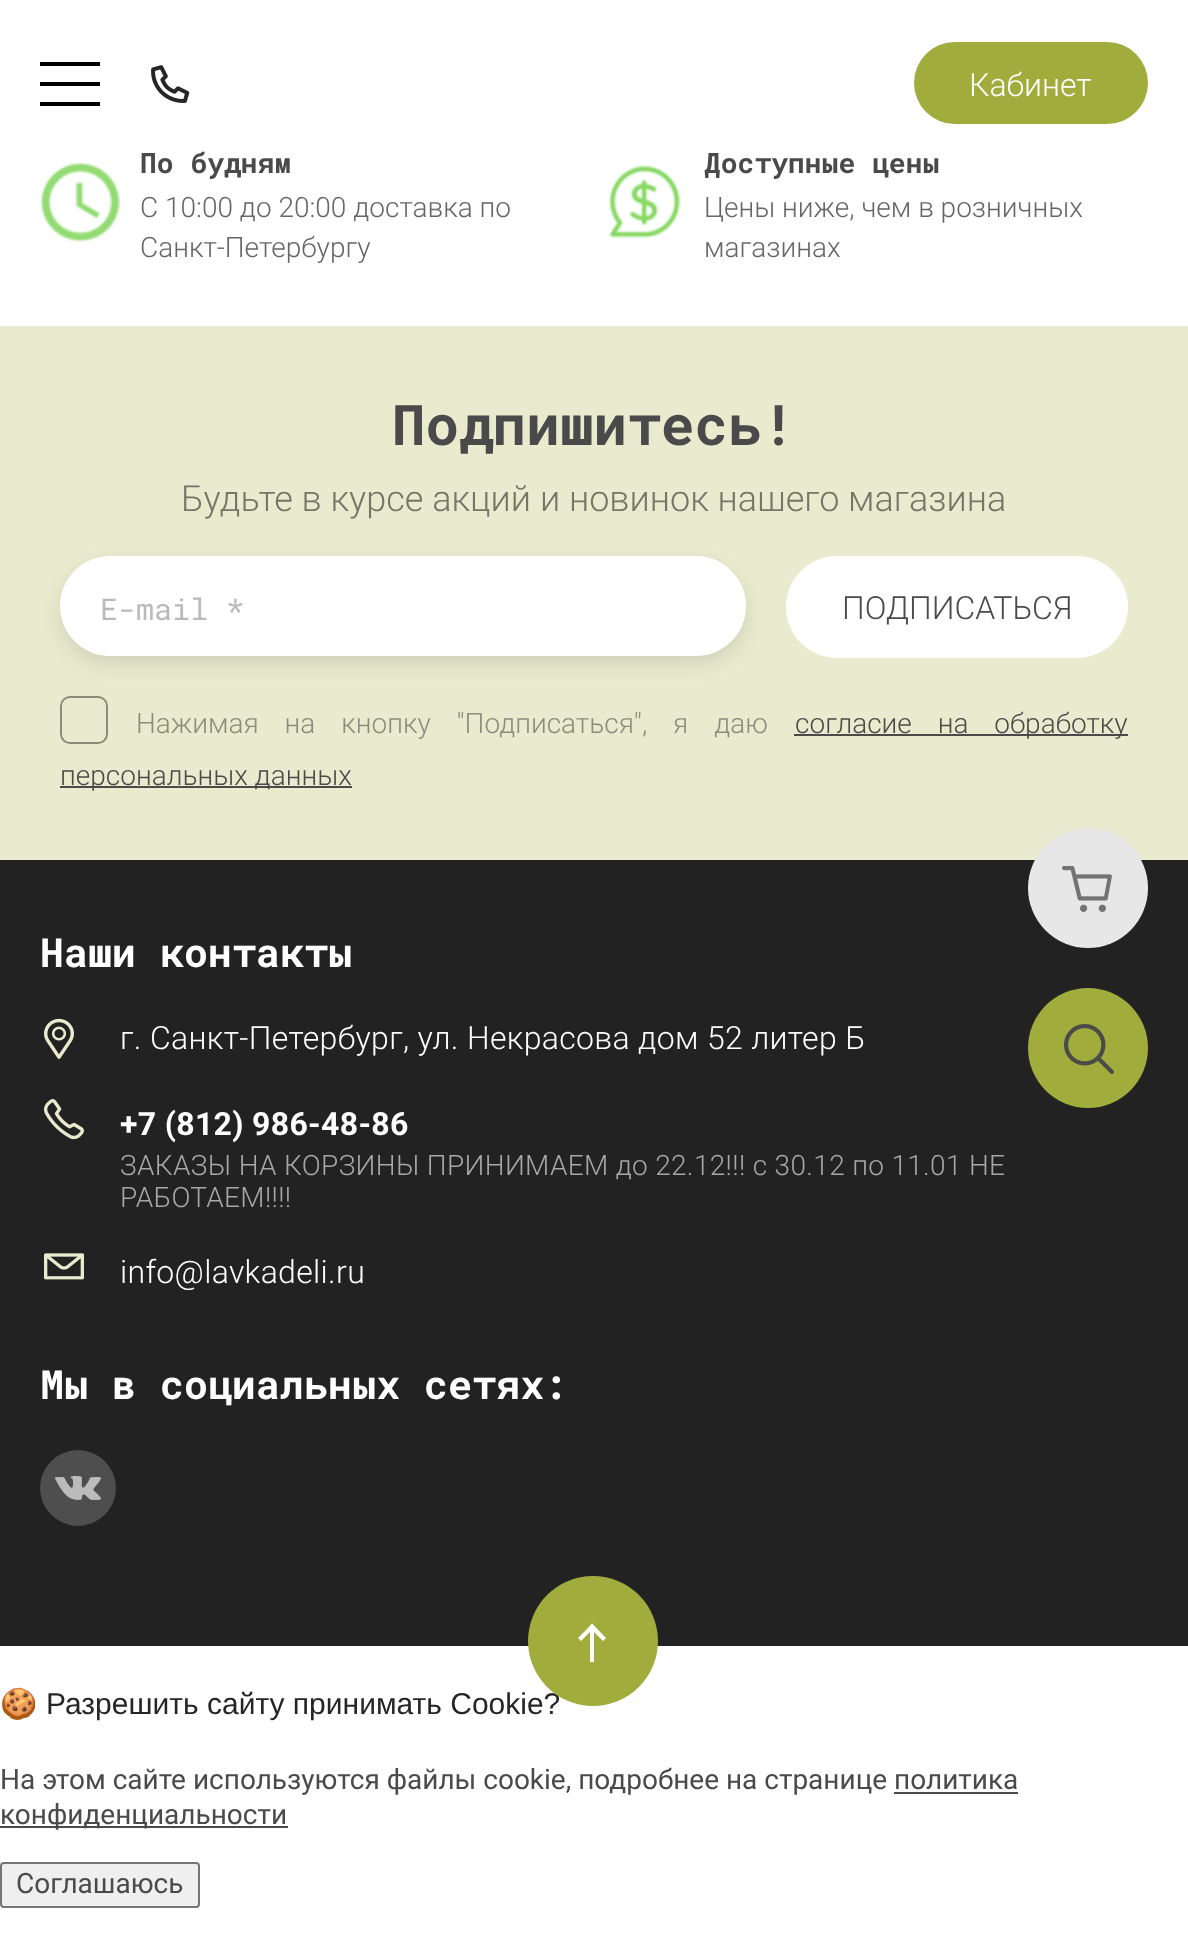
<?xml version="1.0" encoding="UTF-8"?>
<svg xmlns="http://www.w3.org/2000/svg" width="1188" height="1935">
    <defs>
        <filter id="blur1" x="-50%" y="-200%" width="200%" height="500%"><feGaussianBlur stdDeviation="10"/></filter>
    </defs>
    <rect width="100%" height="100%" fill="#FFFFFF"/>
    <rect x="40" y="62" width="60" height="4" fill="#000000"/>
    <rect x="40" y="82" width="60" height="4" fill="#000000"/>
    <rect x="40" y="102" width="60" height="4" fill="#000000"/>
    <image x="151" y="65" width="39" height="38" href="img_01.png"/>
    <rect x="914" y="42" width="234" height="82" rx="41" fill="#A0AC3C"/>
    <text x="969" y="96" font-family="Roboto" font-size="32" font-weight="300" fill="#FFFFFF">Кабинет</text>
    <image x="40" y="162" width="80" height="80" href="img_02.png"/>
    <text x="140" y="173" font-family="Roboto Mono" font-size="28" font-weight="700" fill="#4A4A4A">По будням</text>
    <text font-family="Roboto" font-size="28" font-weight="300" fill="#666666">
        <tspan x="140" y="217">С 10:00 до 20:00 доставка по</tspan>
        <tspan x="140" y="257">Санкт-Петербургу</tspan>
    </text>
    <image x="609" y="165" width="72" height="74" href="img_03.png"/>
    <text x="704" y="173" font-family="Roboto Mono" font-size="28" font-weight="700" fill="#4A4A4A">Доступные цены</text>
    <text font-family="Roboto" font-size="28" font-weight="300" fill="#666666">
        <tspan x="704" y="217">Цены ниже, чем в розничных</tspan>
        <tspan x="704" y="257">магазинах</tspan>
    </text>
    <rect x="0" y="860" width="1188" height="786" fill="#222222"/>
    <rect x="0" y="326" width="1188" height="534" fill="#E8EBCD"/>
    <circle cx="1088" cy="888" r="60" fill="#E7E7E7"/>
    <image x="1062" y="866" width="50" height="46" href="img_04.png"/>
    <circle cx="1088" cy="1048" r="60" fill="#A0AC3C"/>
    <image x="1064" y="1024" width="50" height="50" href="img_05.png"/>
    <text x="392" y="445" font-family="Roboto Mono" font-size="56" font-weight="700" fill="#4A4A4A">Подпишитесь!</text>
    <text x="181" y="511" font-family="Roboto" font-size="36" font-weight="300" fill="#747667">Будьте в курсе акций и новинок нашего магазина</text>
    <rect x="60" y="564" width="686" height="100" rx="50" fill="#000000" fill-opacity="0.1" filter="url(#blur1)"/>
    <rect x="60" y="556" width="686" height="100" rx="50" fill="#FFFFFF"/>
    <text x="100" y="620" font-family="Roboto Mono" font-size="30" fill="#BABABA">E-mail *</text>
    <rect x="786" y="556" width="342" height="102" rx="51" fill="#FFFFFF"/>
    <text x="842" y="619" font-family="Roboto" font-size="32" font-weight="300" fill="#4A4A4A">ПОДПИСАТЬСЯ</text>
    <rect x="61" y="697" width="46" height="46" rx="9" fill="none" stroke="#8B8D7B" stroke-width="2"/>
    <text x="136" y="733" word-spacing="19" font-family="Roboto" font-size="28" font-weight="300" fill="#8B8D7B">Нажимая на кнопку "Подписаться", я даю</text>
    <rect x="794" y="734" width="334" height="2" fill="#4A4A4A"/>
    <text x="795" y="733" word-spacing="19" font-family="Roboto" font-size="28" font-weight="300" fill="#4A4A4A">согласие на обработку</text>
    <rect x="60" y="786" width="292" height="2" fill="#4A4A4A"/>
    <text x="60" y="785" font-family="Roboto" font-size="28" font-weight="300" fill="#4A4A4A">персональных данных</text>
    <text x="40" y="967" font-family="Roboto Mono" font-size="40" font-weight="700" fill="#FFFFFF">Наши контакты</text>
    <image x="44" y="1018" width="30" height="41" href="img_06.png"/>
    <text x="120" y="1049" font-family="Roboto" font-size="32" font-weight="300" letter-spacing="0.32" fill="#FFFFFF">г. Санкт-Петербург, ул. Некрасова дом 52 литер Б</text>
    <image x="44" y="1099" width="40" height="41" href="img_07.png"/>
    <text x="120" y="1135" font-family="Roboto" font-size="32" font-weight="700" letter-spacing="0.32" fill="#FFFFFF">+7 (812) 986-48-86</text>
    <text font-family="Roboto" font-size="28" font-weight="300" letter-spacing="0.32" fill="#A7A7A7">
        <tspan x="120" y="1175">ЗАКАЗЫ НА КОРЗИНЫ ПРИНИМАЕМ до 22.12!!! с 30.12 по 11.01 НЕ</tspan>
        <tspan x="120" y="1207">РАБОТАЕМ!!!!</tspan>
    </text>
    <image x="44" y="1253" width="40" height="27" href="img_08.png"/>
    <text x="120" y="1283" font-family="Roboto" font-size="32" font-weight="300" letter-spacing="0.32" fill="#FFFFFF">info@lavkadeli.ru</text>
    <text x="40" y="1399" font-family="Roboto Mono" font-size="40" font-weight="700" fill="#FFFFFF">Мы в социальных сетях:</text>
    <circle cx="78" cy="1488" r="38" fill="#4E4E4E"/>
    <image x="55" y="1476" width="46" height="24" href="img_09.png"/>
    <text x="46" y="1714" font-family="Liberation Sans" font-size="30" fill="#262626">Разрешить сайту принимать Cookie?</text>
    <circle cx="593" cy="1641" r="65" fill="#A0AC3C"/>
    <rect x="590" y="1628" width="4" height="34" fill="#FFFFFF"/>
    <path d="M 606 1638 L 603 1641 L 589 1627 L 592 1623.5 Z" fill="#FFFFFF"/>
    <path d="M 581 1641 L 578 1638 L 592 1624 L 595 1627 Z" fill="#FFFFFF"/>
    <text x="0" y="1714" font-family="Noto Color Emoji" font-size="30" fill="#262626">🍪</text>
    <text x="0" y="1789" font-family="Roboto" font-size="28" fill="#4A4A4A">На этом сайте используются файлы cookie, подробнее на странице политика</text>
    <rect x="0" y="1826" width="288" height="2" fill="#4A4A4A"/>
    <text x="0" y="1824" font-family="Roboto" font-size="28" fill="#4A4A4A">конфиденциальности</text>
    <rect x="894" y="1792" width="124" height="2" fill="#4A4A4A"/>
    <rect x="1" y="1863" width="198" height="44" rx="3" fill="#EFEFEF" stroke="#767676" stroke-width="2"/>
    <text x="16" y="1893" font-family="Roboto" font-size="28" fill="#4A4A4A">Соглашаюсь</text>
</svg>
